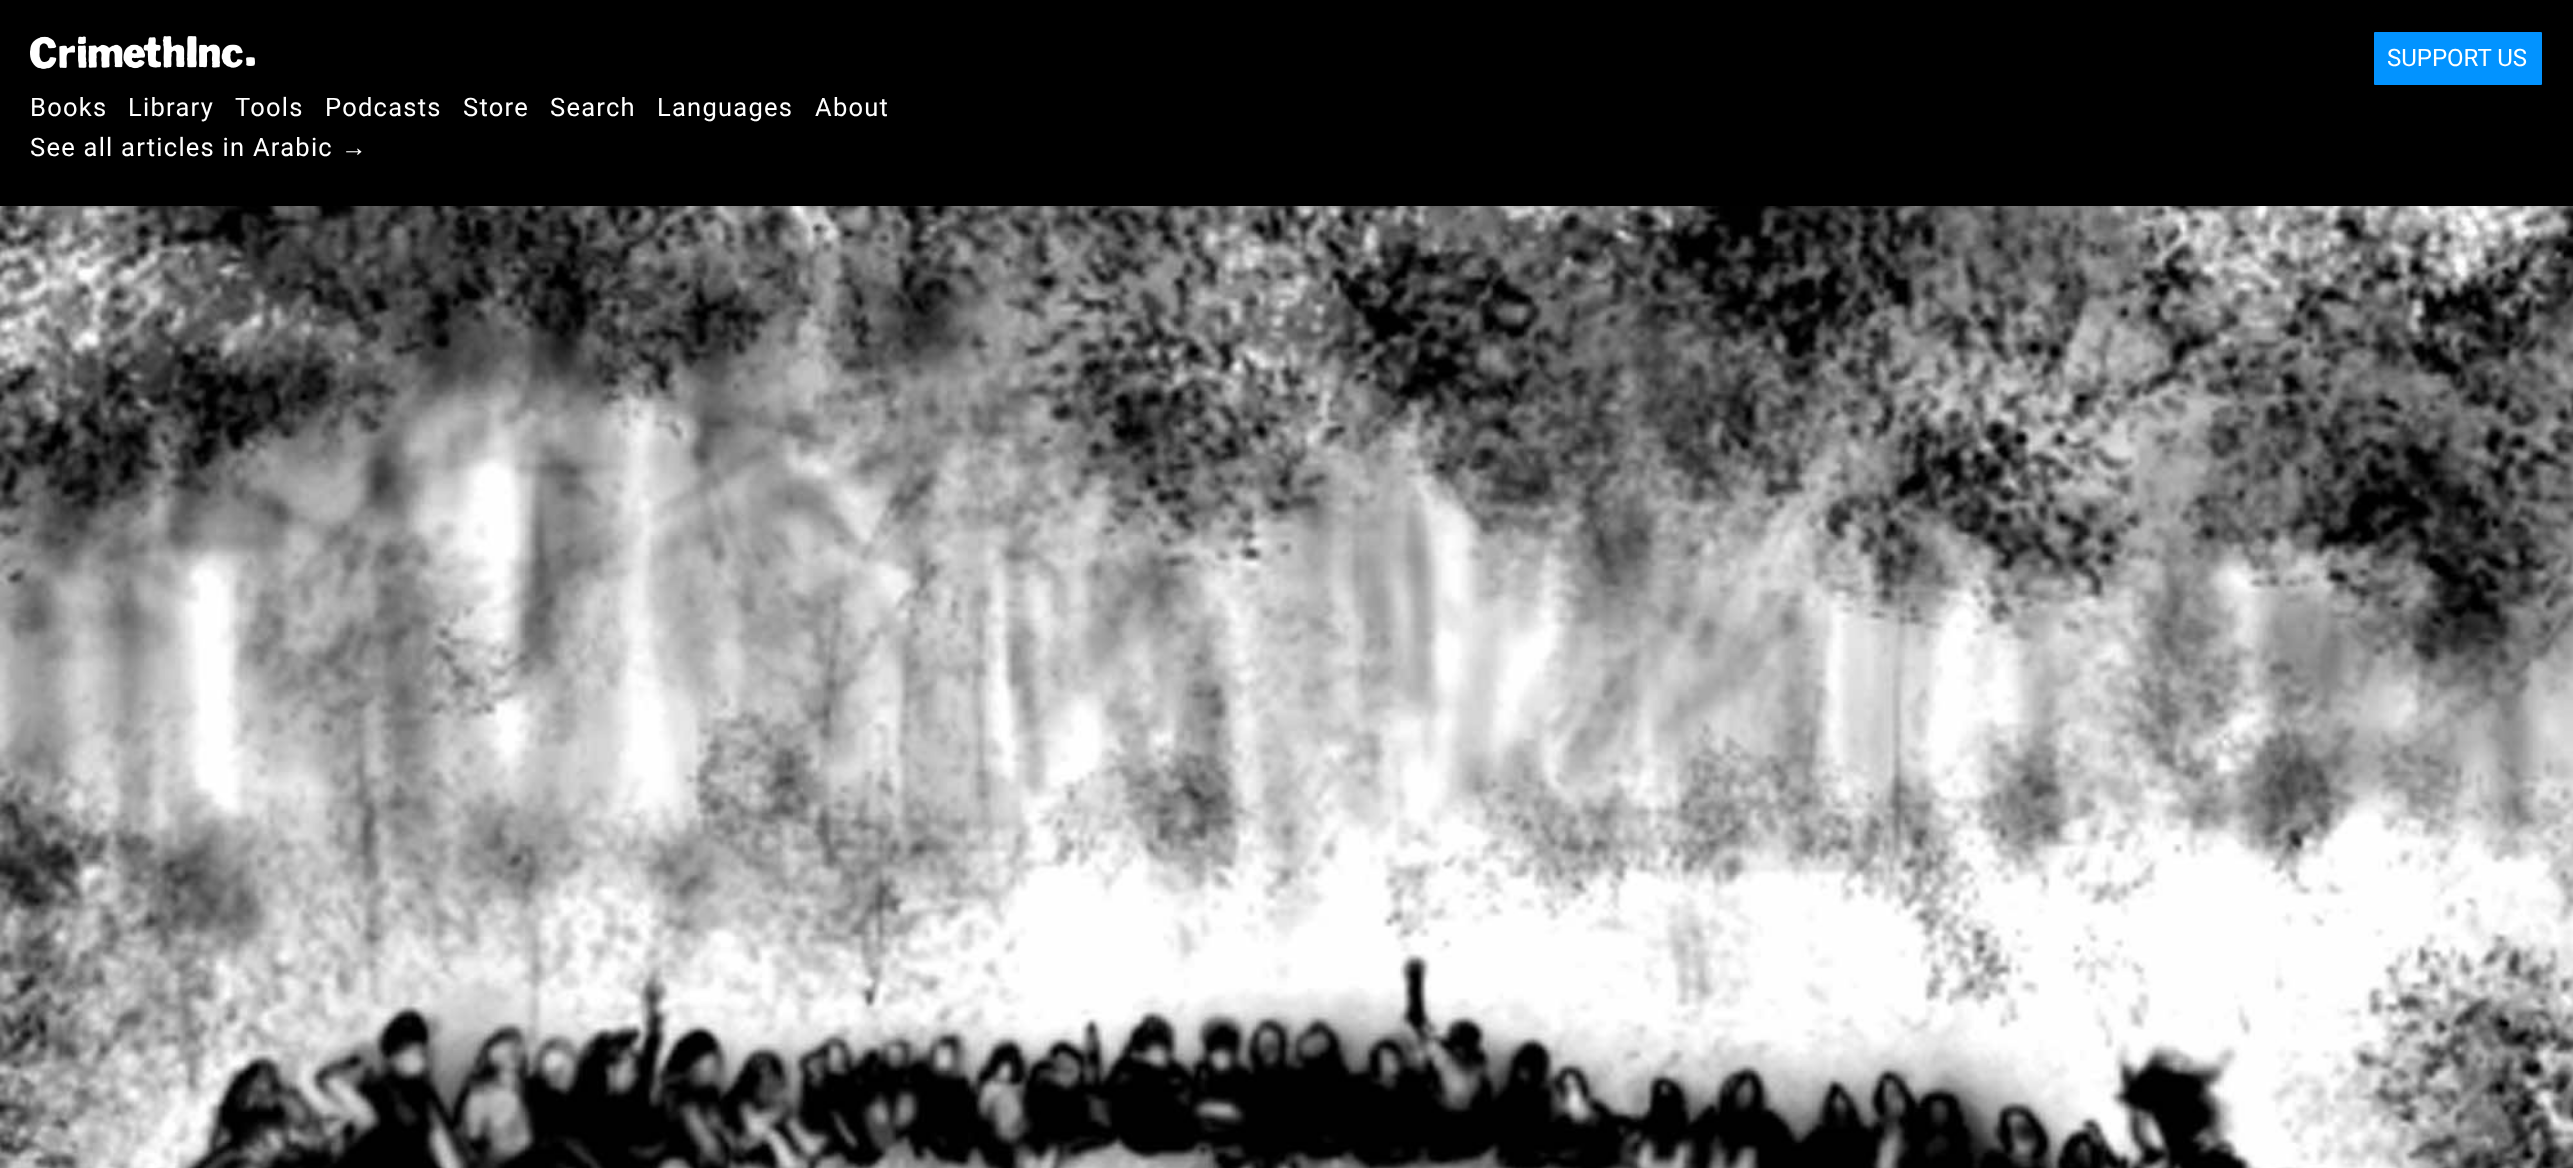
<?xml version="1.0" encoding="UTF-8"?>
<svg xmlns="http://www.w3.org/2000/svg" width="2573" height="1168">
    <rect width="100%" height="100%" fill="#FFFFFF"/>
    <rect x="0" y="0" width="2573" height="206" fill="#000000"/>
    <image x="30" y="36" width="225" height="33" href="img_01.png"/>
    <rect x="2373" y="31" width="170" height="55" rx="2" fill="#0293FF" stroke="#000000" stroke-width="2"/>
    <text x="2387" y="66" font-family="Roboto" font-size="24" fill="#FFFFFF">SUPPORT US</text>
    <text x="30" y="116" font-family="Roboto" font-size="25.5" letter-spacing="1.25" fill="#FFFFFF">Books</text>
    <text x="128" y="116" font-family="Roboto" font-size="25.5" letter-spacing="1.25" fill="#FFFFFF">Library</text>
    <text x="235" y="116" font-family="Roboto" font-size="25.5" letter-spacing="1.25" fill="#FFFFFF">Tools</text>
    <text x="325" y="116" font-family="Roboto" font-size="25.5" letter-spacing="1.25" fill="#FFFFFF">Podcasts</text>
    <text x="463" y="116" font-family="Roboto" font-size="25.5" letter-spacing="1.25" fill="#FFFFFF">Store</text>
    <text x="550" y="116" font-family="Roboto" font-size="25.5" letter-spacing="1.25" fill="#FFFFFF">Search</text>
    <text x="657" y="116" font-family="Roboto" font-size="25.5" letter-spacing="1.25" fill="#FFFFFF">Languages</text>
    <text x="815" y="116" font-family="Roboto" font-size="25.5" letter-spacing="1.25" fill="#FFFFFF">About</text>
    <text x="30" y="156" font-family="Roboto" font-size="25.5" letter-spacing="1.25" fill="#FFFFFF">See all articles in Arabic</text>
    <text x="341" y="156" font-family="Liberation Sans" font-size="25.5" letter-spacing="1.25" fill="#FFFFFF">→</text>
    <image x="0" y="206" width="2573" height="962" href="img_02.png"/>
</svg>
